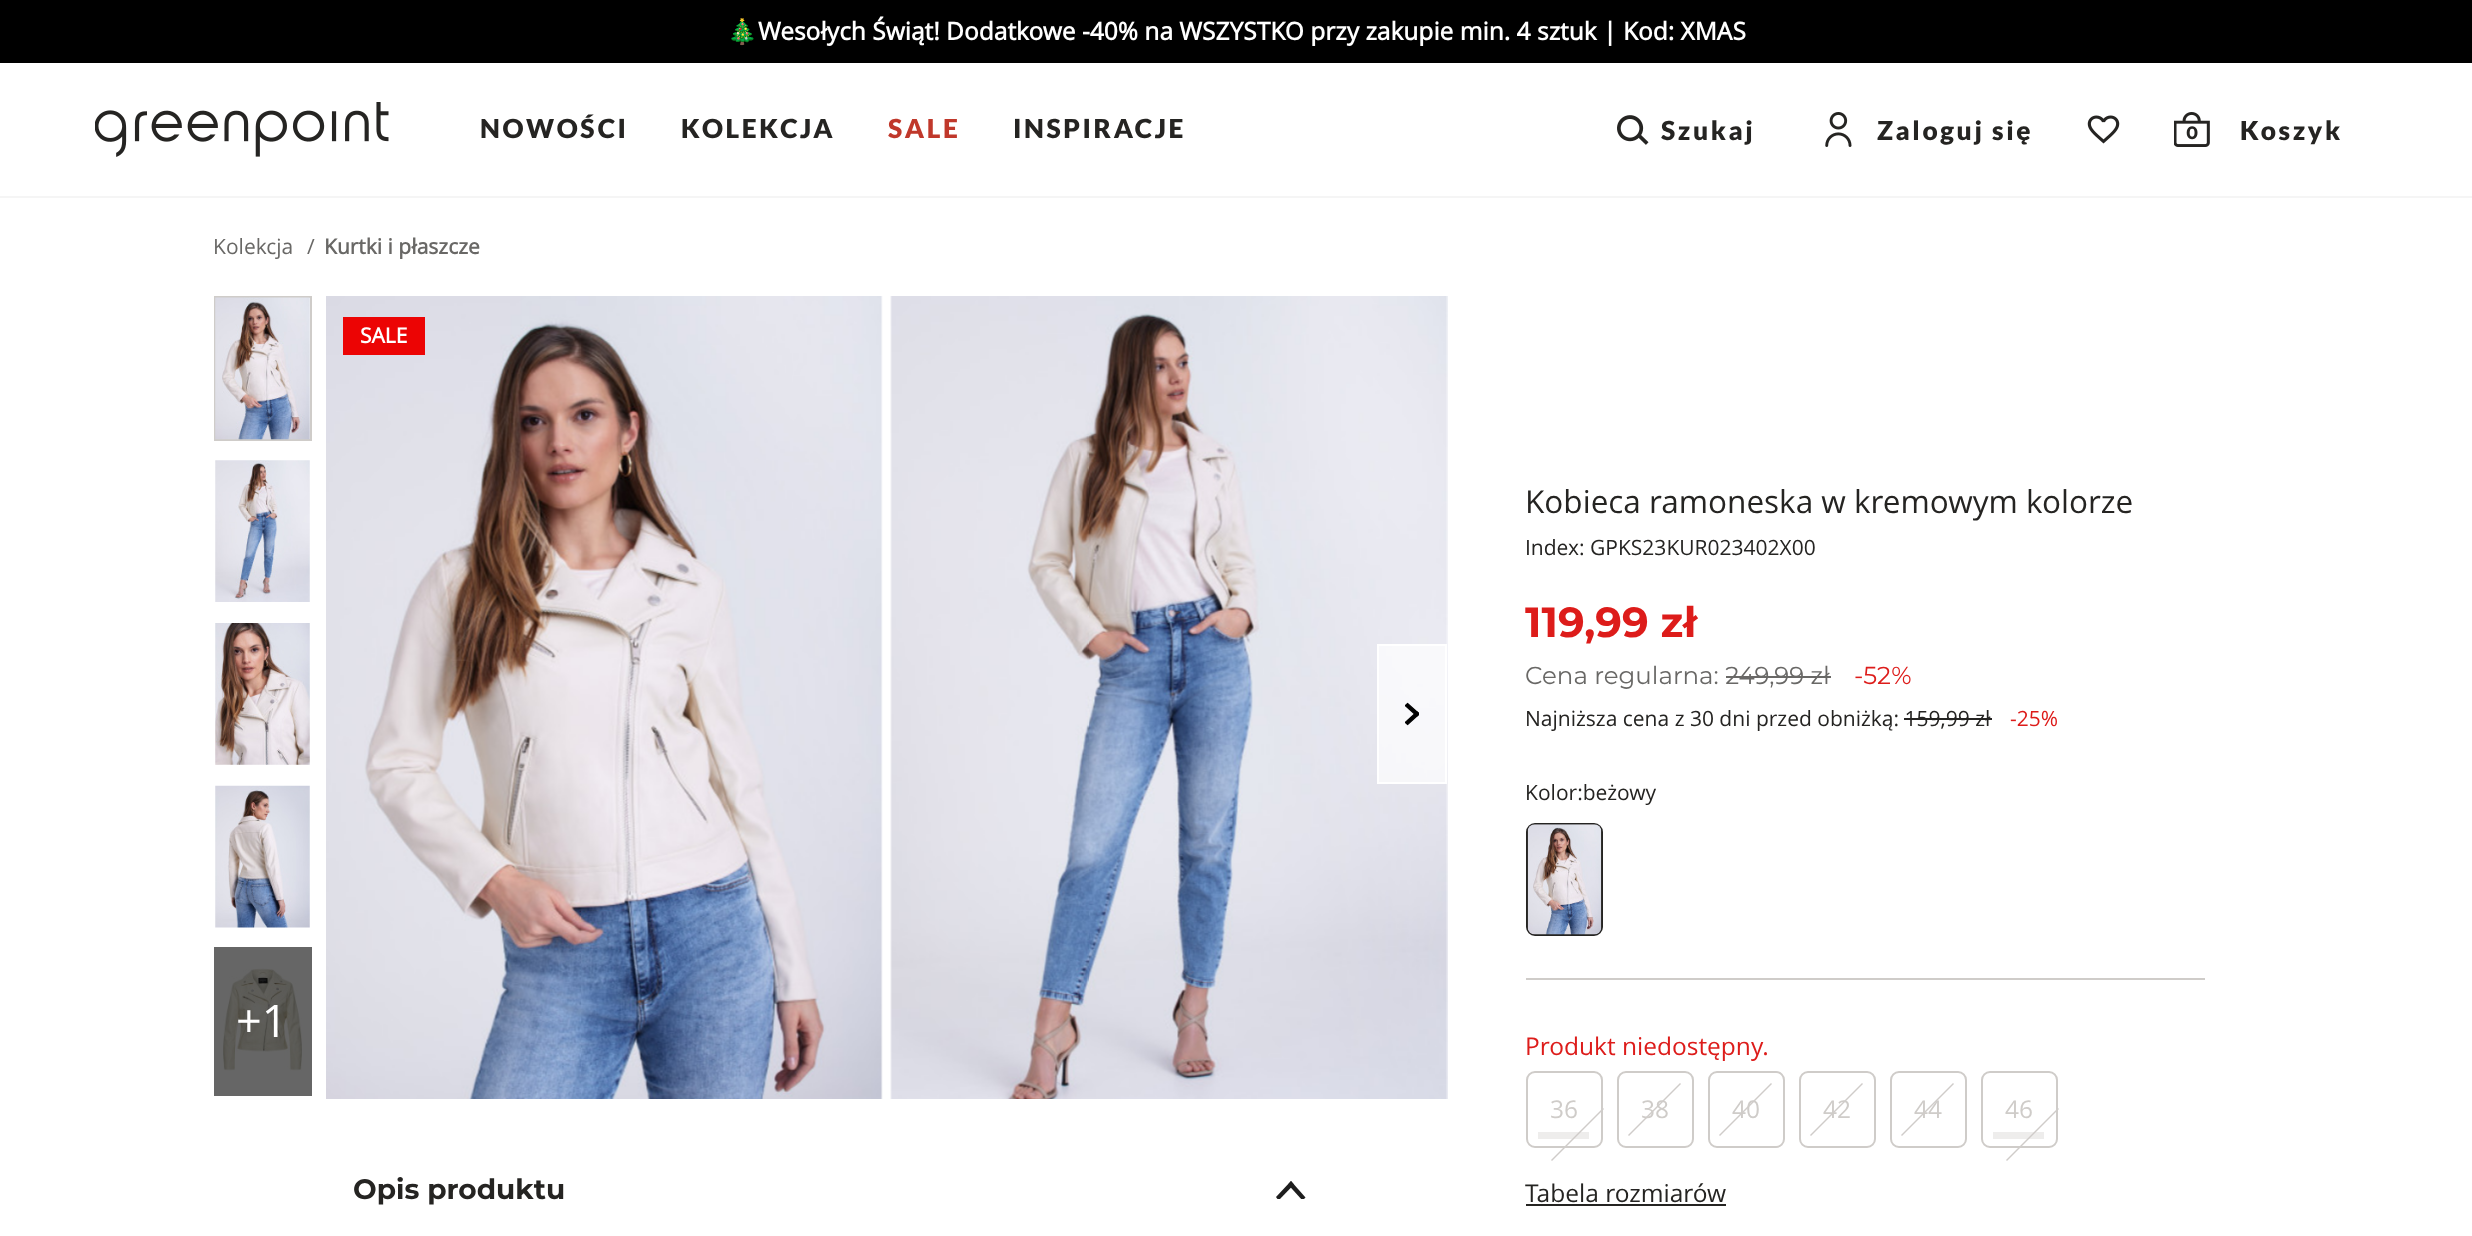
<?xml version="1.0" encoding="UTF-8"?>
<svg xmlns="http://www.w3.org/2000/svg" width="2472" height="1236">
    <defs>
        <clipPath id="clip1"><rect x="1276" y="1181" width="31" height="18"/></clipPath>
    </defs>
    <rect width="100%" height="100%" fill="#FFFFFF"/>
    <rect x="214" y="947" width="98" height="149" fill="#666666"/>
    <rect x="0" y="196" width="2472" height="2" fill="#F5F5F5"/>
    <rect x="0" y="0" width="2472" height="63" fill="#000000"/>
    <text x="727" y="40" font-family="Noto Color Emoji" font-size="24.5" font-weight="700" fill="#FFFFFF">🎄</text>
    <text x="758" y="40" font-family="Open Sans" font-size="24.5" font-weight="700" fill="#FFFFFF">Wesołych Świąt! Dodatkowe -40% na WSZYSTKO przy zakupie min. 4 sztuk | Kod: XMAS</text>
    <image x="95" y="102" width="294" height="55" href="img_01.png"/>
    <text x="480" y="138" font-family="Lato" font-size="26.25" font-weight="900" letter-spacing="2.6" fill="#252422">NOWOŚCI</text>
    <text x="681" y="138" font-family="Lato" font-size="26.25" font-weight="900" letter-spacing="2.6" fill="#252422">KOLEKCJA</text>
    <text x="888" y="138" font-family="Lato" font-size="26.25" font-weight="900" letter-spacing="2.6" fill="#C0382B">SALE</text>
    <text x="1013" y="138" font-family="Lato" font-size="26.25" font-weight="900" letter-spacing="2.6" fill="#252422">INSPIRACJE</text>
    <image x="1617" y="115" width="32" height="30" href="img_02.png"/>
    <text x="1661" y="140" font-family="Lato" font-size="26.25" font-weight="900" letter-spacing="2.6" fill="#252422">Szukaj</text>
    <image x="1825" y="112" width="27" height="35" href="img_03.png"/>
    <text x="1877" y="140" font-family="Lato" font-size="26.25" font-weight="900" letter-spacing="2.6" fill="#252422">Zaloguj się</text>
    <image x="2087" y="115" width="33" height="29" href="img_04.png"/>
    <image x="2174" y="112" width="36" height="35" href="img_05.png"/>
    <text x="2240" y="140" font-family="Lato" font-size="26.25" font-weight="900" letter-spacing="2.6" fill="#252422">Koszyk</text>
    <text x="2186" y="139" font-family="Montserrat" font-size="18" font-weight="100" fill="#252422">0</text>
    <text x="213" y="254" font-family="Open Sans" font-size="21" fill="#696866">Kolekcja</text>
    <text x="307" y="254" font-family="Open Sans" font-size="21" fill="#696866">/</text>
    <text x="324" y="254" font-family="Open Sans" font-size="21" font-weight="700" fill="#696866">Kurtki i płaszcze</text>
    <image x="326" y="296" width="557" height="803" href="img_06.png"/>
    <image x="890" y="296" width="558" height="803" href="img_07.png"/>
    <rect x="343" y="317" width="82" height="38" fill="#EC0404"/>
    <text x="360" y="343" font-family="Open Sans" font-size="21" font-weight="700" fill="#FFFFFF">SALE</text>
    <rect x="1378" y="645" width="68" height="138" fill="#FFFFFF" fill-opacity="0.7" stroke="#FFFFFF" stroke-width="2"/>
    <image x="1405" y="702" width="14" height="24" href="img_08.png"/>
    <rect x="215" y="297" width="96" height="143" fill="none" stroke="#CFCCC9" stroke-width="2"/>
    <image x="215" y="297" width="95" height="143" href="img_09.png"/>
    <image x="215" y="460" width="95" height="142" href="img_10.png"/>
    <image x="215" y="623" width="95" height="142" href="img_11.png"/>
    <image x="215" y="785" width="95" height="143" href="img_12.png"/>
    <image x="223" y="968" width="79" height="103" href="img_13.png"/>
    <text x="236" y="1037" font-family="Open Sans" font-size="45" fill="#FFFFFF">+1</text>
    <text x="353" y="1199" font-family="Montserrat" font-size="28" font-weight="100" fill="#252422">Opis produktu</text>
    <g clip-path="url(#clip1)">
        <path d="M 1294 1184.5 L 1278.5 1200.5 L 1276 1197 L 1291 1181 Z" fill="#1E1E1E"/>
        <path d="M 1305.5 1197.5 L 1302.5 1200.5 L 1288 1184.5 L 1291 1181 Z" fill="#1E1E1E"/>
    </g>
    <text x="1525" y="513" font-family="Open Sans" font-size="31.5" fill="#252422">Kobieca ramoneska w kremowym kolorze</text>
    <text x="1525" y="555" font-family="Open Sans" font-size="21" fill="#252422">Index: GPKS23KUR023402X00</text>
    <text x="1525" y="637" font-family="Montserrat" font-size="42" font-weight="100" fill="#DD1C1A">119,99 zł</text>
    <text x="1525" y="684" font-family="'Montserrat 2'" font-size="24.5" font-weight="100" fill="#696866">Cena regularna: 249,99 zł</text>
    <text x="1854" y="684" font-family="'Montserrat 2'" font-size="24.5" font-weight="100" fill="#DD1C1A">-52%</text>
    <rect x="1726" y="676" width="105" height="2" fill="#696866"/>
    <text x="1525" y="726" font-family="Open Sans" font-size="21" fill="#252422">Najniższa cena z 30 dni przed obniżką: 159,99 zł</text>
    <text x="2010" y="726" font-family="Open Sans" font-size="21" fill="#DD1C1A">-25%</text>
    <rect x="1904" y="718" width="88" height="2" fill="#252422"/>
    <text x="1525" y="800" font-family="Open Sans" font-size="21" fill="#252422">Kolor:beżowy</text>
    <rect x="1527" y="824" width="75" height="111" rx="8" fill="none" stroke="#252422" stroke-width="2"/>
    <image x="1527" y="824" width="75" height="111" href="img_14.png"/>
    <rect x="1526" y="978" width="679" height="2" fill="#CFCCC9"/>
    <text x="1525" y="1055" font-family="Open Sans" font-size="24.5" fill="#DD1C1A">Produkt niedostępny.</text>
    <rect x="1527" y="1072" width="75" height="75" rx="8" fill="none" stroke="#CFCCC9" stroke-width="2"/>
    <text x="1550" y="1118" font-family="Open Sans" font-size="24.5" fill="#CFCCC9">36</text>
    <rect x="1538" y="1132" width="51" height="7" fill="#EEEDEC"/>
    <path d="M 1551 1160 L 1603 1108 L 1604 1109 L 1552 1161 Z" fill="#CFCCC9"/>
    <rect x="1618" y="1072" width="75" height="75" rx="8" fill="none" stroke="#CFCCC9" stroke-width="2"/>
    <path d="M 1628 1135 L 1680 1083 L 1681 1084 L 1629 1136 Z" fill="#CFCCC9"/>
    <text x="1641" y="1118" font-family="Open Sans" font-size="24.5" fill="#CFCCC9">38</text>
    <rect x="1709" y="1072" width="75" height="75" rx="8" fill="none" stroke="#CFCCC9" stroke-width="2"/>
    <path d="M 1719 1135 L 1771 1083 L 1772 1084 L 1720 1136 Z" fill="#CFCCC9"/>
    <text x="1732" y="1118" font-family="Open Sans" font-size="24.5" fill="#CFCCC9">40</text>
    <rect x="1800" y="1072" width="75" height="75" rx="8" fill="none" stroke="#CFCCC9" stroke-width="2"/>
    <path d="M 1810 1135 L 1862 1083 L 1863 1084 L 1811 1136 Z" fill="#CFCCC9"/>
    <text x="1823" y="1118" font-family="Open Sans" font-size="24.5" fill="#CFCCC9">42</text>
    <rect x="1891" y="1072" width="75" height="75" rx="8" fill="none" stroke="#CFCCC9" stroke-width="2"/>
    <path d="M 1901 1135 L 1953 1083 L 1954 1084 L 1902 1136 Z" fill="#CFCCC9"/>
    <text x="1914" y="1118" font-family="Open Sans" font-size="24.5" fill="#CFCCC9">44</text>
    <rect x="1982" y="1072" width="75" height="75" rx="8" fill="none" stroke="#CFCCC9" stroke-width="2"/>
    <text x="2005" y="1118" font-family="Open Sans" font-size="24.5" fill="#CFCCC9">46</text>
    <rect x="1993" y="1132" width="51" height="7" fill="#EEEDEC"/>
    <path d="M 2006 1160 L 2058 1108 L 2059 1109 L 2007 1161 Z" fill="#CFCCC9"/>
    <text x="1525" y="1202" font-family="Open Sans" font-size="24.5" fill="#252422">Tabela rozmiarów</text>
    <rect x="1526" y="1204" width="200" height="2" fill="#252422"/>
</svg>
